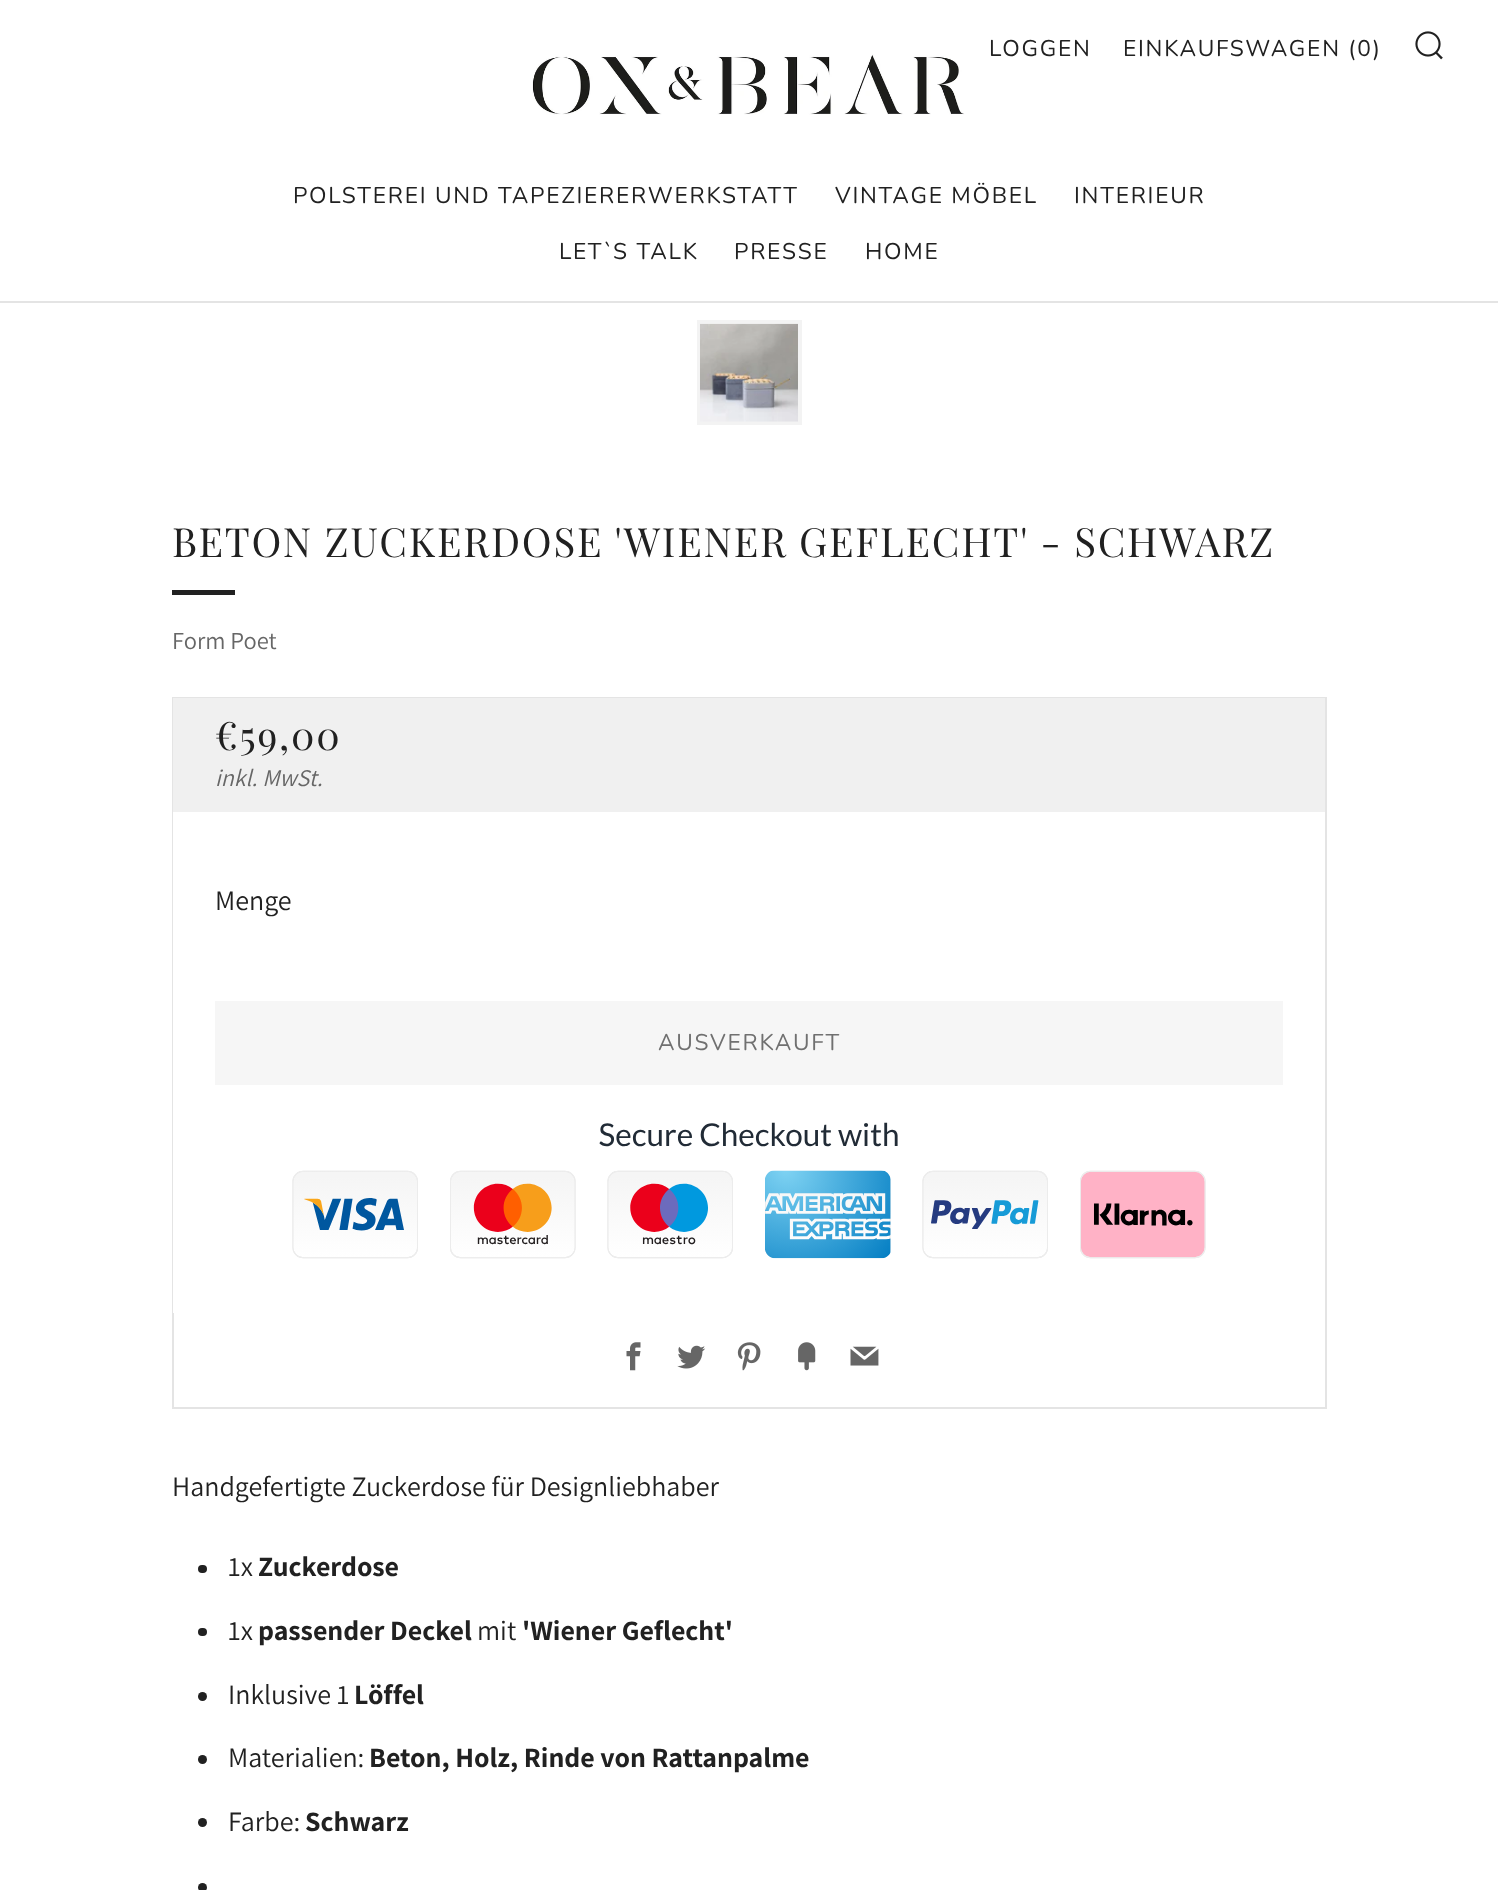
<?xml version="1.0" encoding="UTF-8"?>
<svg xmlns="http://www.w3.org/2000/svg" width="1498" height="1890">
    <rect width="100%" height="100%" fill="#FFFFFF"/>
    <rect x="0" y="301" width="1498" height="2" fill="#E4E4E4"/>
    <text x="989" y="56" font-family="Nunito" font-size="22.75" letter-spacing="1.75" fill="#212121">LOGGEN</text>
    <text x="1123" y="56" font-family="Nunito" font-size="22.75" letter-spacing="1.75" fill="#212121">EINKAUFSWAGEN (0)</text>
    <image x="1415" y="31" width="28" height="29" href="img_01.png"/>
    <text x="293" y="203" font-family="Nunito" font-size="22.75" letter-spacing="1.75" fill="#212121">POLSTEREI UND TAPEZIERERWERKSTATT</text>
    <text x="835" y="203" font-family="Nunito" font-size="22.75" letter-spacing="1.75" fill="#212121">VINTAGE MÖBEL</text>
    <text x="1074" y="203" font-family="Nunito" font-size="22.75" letter-spacing="1.75" fill="#212121">INTERIEUR</text>
    <text x="559" y="259" font-family="Nunito" font-size="22.75" letter-spacing="1.75" fill="#212121">LET`S TALK</text>
    <text x="734" y="259" font-family="Nunito" font-size="22.75" letter-spacing="1.75" fill="#212121">PRESSE</text>
    <text x="865" y="259" font-family="Nunito" font-size="22.75" letter-spacing="1.75" fill="#212121">HOME</text>
    <image x="532" y="39" width="453" height="76" href="img_02.png"/>
    <rect x="697" y="320" width="105" height="105" fill="#F3F3F3"/>
    <image x="700" y="323" width="98" height="99" href="img_03.png"/>
    <text x="172" y="557" font-family="Playfair Display" font-size="40.25" letter-spacing="1.75" fill="#212121">BETON ZUCKERDOSE 'WIENER GEFLECHT' - SCHWARZ</text>
    <rect x="172" y="590" width="63" height="5" fill="#212121"/>
    <text x="172" y="649" font-family="Assistant" font-size="24.5" fill="#666666">Form Poet</text>
    <rect x="173" y="698" width="1153" height="710" fill="none" stroke="#E4E4E4" stroke-width="2"/>
    <rect x="173" y="698" width="1152" height="114" fill="#F0F0F0"/>
    <text x="215" y="750" font-family="Playfair Display" font-size="39" letter-spacing="1.75" fill="#212121">€59,00</text>
    <text x="215" y="786" font-family="Assistant" font-size="24" font-style="italic" fill="#666666">inkl. MwSt.</text>
    <rect x="173" y="812" width="1" height="501" fill="#FFFFFF"/>
    <text x="215" y="910" font-family="Assistant" font-size="28" fill="#212121">Menge</text>
    <rect x="215" y="1001" width="1068" height="84" fill="#F6F6F6"/>
    <text x="658" y="1050" font-family="Nunito" font-size="22.75" letter-spacing="1.75" fill="#707070">AUSVERKAUFT</text>
    <image x="292" y="1122" width="914" height="137" href="img_04.png"/>
    <image x="626" y="1342" width="15" height="29" href="img_05.png"/>
    <image x="677" y="1345" width="29" height="24" href="img_06.png"/>
    <image x="737" y="1342" width="24" height="29" href="img_07.png"/>
    <image x="798" y="1342" width="18" height="29" href="img_08.png"/>
    <image x="850" y="1346" width="29" height="20" href="img_09.png"/>
    <text x="172" y="1496" font-family="Assistant" font-size="28" fill="#212121">Handgefertigte Zuckerdose für Designliebhaber</text>
    <rect x="198" y="1565" width="9" height="8" rx="4" fill="#212121"/>
    <text x="228" y="1576" font-family="Assistant" font-size="28" fill="#212121">1x</text>
    <text x="258" y="1576" font-family="Assistant" font-size="28" font-weight="700" fill="#212121">Zuckerdose</text>
    <rect x="198" y="1628" width="9" height="8" rx="4" fill="#212121"/>
    <text x="228" y="1640" font-family="Assistant" font-size="28" fill="#212121">1x</text>
    <text x="258" y="1640" font-family="Assistant" font-size="28" font-weight="700" fill="#212121">passender Deckel</text>
    <text x="477" y="1640" font-family="Assistant" font-size="28" fill="#212121">mit</text>
    <text x="522" y="1640" font-family="Assistant" font-size="28" font-weight="700" fill="#212121">'Wiener Geflecht'</text>
    <circle cx="202.5" cy="1696.5" r="4.5" fill="#212121"/>
    <text x="228" y="1704" font-family="Assistant" font-size="28" fill="#212121">Inklusive 1</text>
    <text x="354" y="1704" font-family="Assistant" font-size="28" font-weight="700" fill="#212121">Löffel</text>
    <circle cx="202.5" cy="1759.5" r="4.5" fill="#212121"/>
    <text x="228" y="1767" font-family="Assistant" font-size="28" fill="#212121">Materialien:</text>
    <text x="369" y="1767" font-family="Assistant" font-size="28" font-weight="700" fill="#212121">Beton, Holz, Rinde von Rattanpalme</text>
    <circle cx="202.5" cy="1822.5" r="4.5" fill="#212121"/>
    <text x="228" y="1831" font-family="Assistant" font-size="28" fill="#212121">Farbe:</text>
    <text x="305" y="1831" font-family="Assistant" font-size="28" font-weight="700" fill="#212121">Schwarz</text>
    <circle cx="202.5" cy="1887.5" r="4.5" fill="#212121"/>
</svg>
